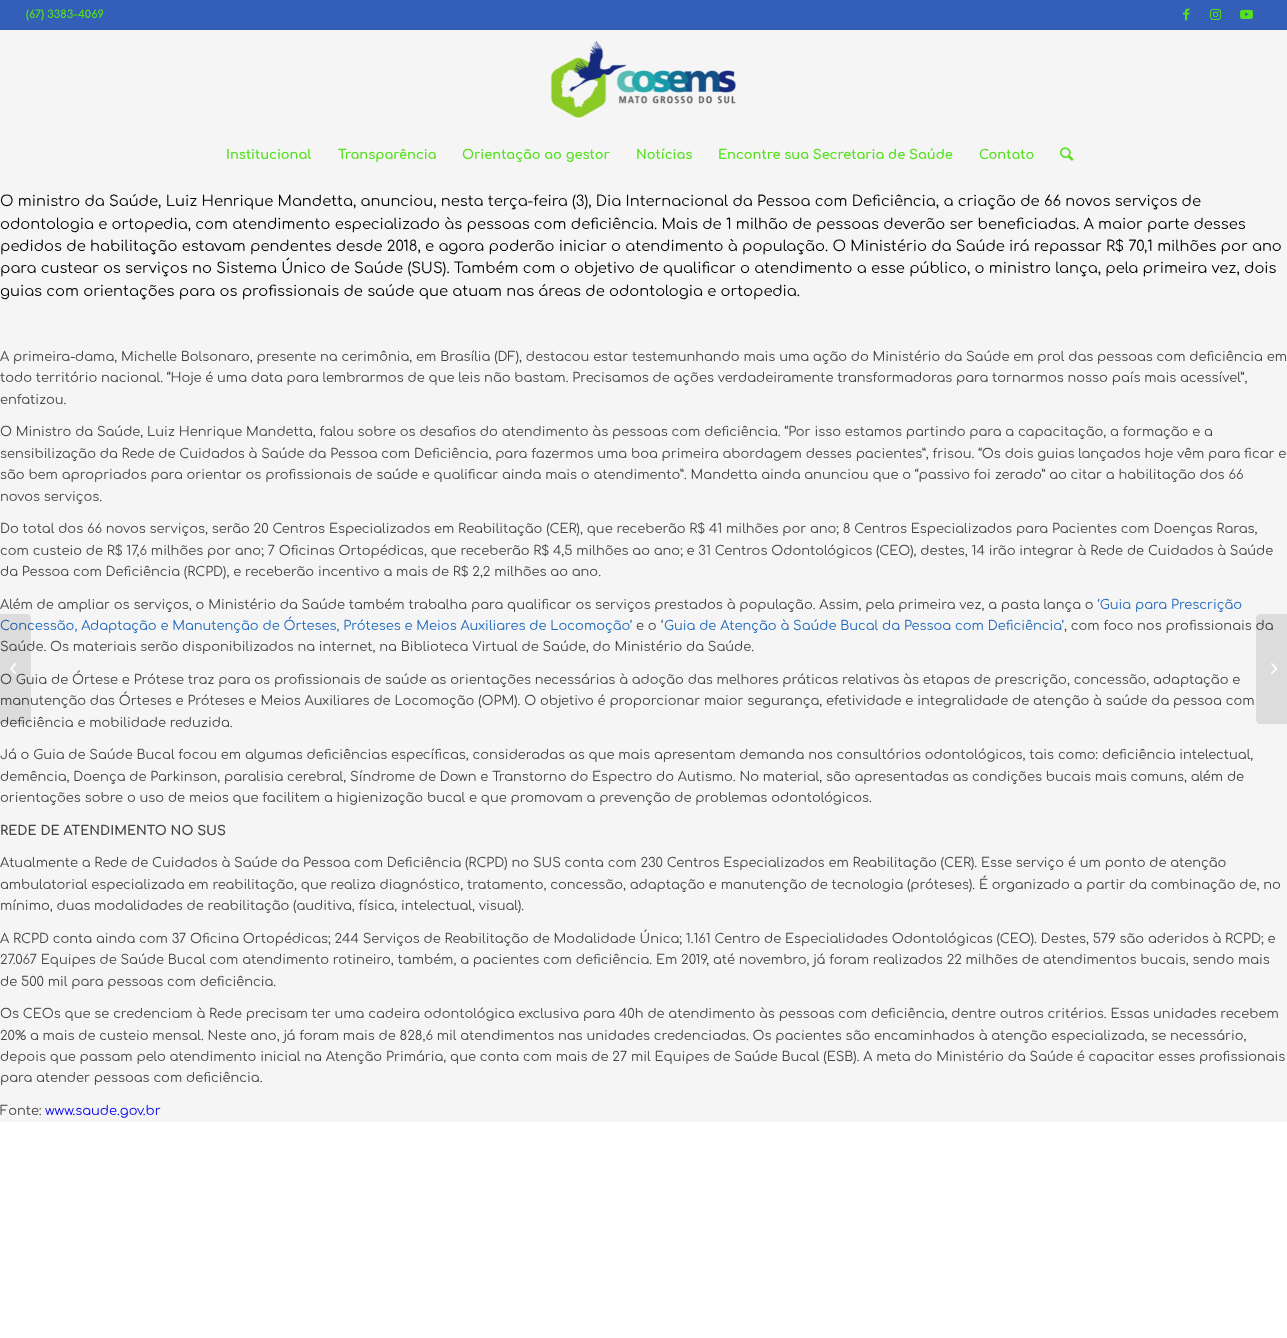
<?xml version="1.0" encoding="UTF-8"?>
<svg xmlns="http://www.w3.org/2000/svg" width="1287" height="1338">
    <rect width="100%" height="100%" fill="#FFFFFF"/>
    <rect x="0" y="0" width="1287" height="30" fill="#335FB8"/>
    <text x="26" y="18" font-family="Comfortaa" font-size="11" font-weight="700" fill="#56E020">(67) 3383-4069</text>
    <image x="1183" y="8" width="7" height="13" href="img_01.png"/>
    <image x="1210" y="8" width="12" height="12" href="img_02.png"/>
    <image x="1240" y="9" width="13" height="10" href="img_03.png"/>
    <rect x="0" y="30" width="1287" height="1092" fill="#F5F5F5"/>
    <image x="550" y="41" width="186" height="77" href="img_04.png"/>
    <text x="226" y="159" font-family="Comfortaa" font-size="13" font-weight="700" fill="#56E020">Institucional</text>
    <text x="338" y="159" font-family="Comfortaa" font-size="13" font-weight="700" fill="#56E020">Transparência</text>
    <text x="462" y="159" font-family="Comfortaa" font-size="13" font-weight="700" fill="#56E020">Orientação ao gestor</text>
    <text x="636" y="159" font-family="Comfortaa" font-size="13" font-weight="700" fill="#56E020">Notícias</text>
    <text x="718" y="159" font-family="Comfortaa" font-size="13" font-weight="700" fill="#56E020">Encontre sua Secretaria de Saúde</text>
    <text x="979" y="159" font-family="Comfortaa" font-size="13" font-weight="700" fill="#56E020">Contato</text>
    <image x="1060" y="147" width="14" height="14" href="img_05.png"/>
    <text font-family="Comfortaa" font-size="14.7" fill="#000000">
        <tspan x="0" y="206">O ministro da Saúde, Luiz Henrique Mandetta, anunciou, nesta terça-feira (3), Dia Internacional da Pessoa com Deficiência, a criação de 66 novos serviços de</tspan>
        <tspan x="0" y="229">odontologia e ortopedia, com atendimento especializado às pessoas com deficiência. Mais de 1 milhão de pessoas deverão ser beneficiadas. A maior parte desses</tspan>
        <tspan x="0" y="251">pedidos de habilitação estavam pendentes desde 2018, e agora poderão iniciar o atendimento à população. O Ministério da Saúde irá repassar R$ 70,1 milhões por ano</tspan>
        <tspan x="0" y="273">para custear os serviços no Sistema Único de Saúde (SUS). Também com o objetivo de qualificar o atendimento a esse público, o ministro lança, pela primeira vez, dois</tspan>
        <tspan x="0" y="296">guias com orientações para os profissionais de saúde que atuam nas áreas de odontologia e ortopedia.</tspan>
    </text>
    <text font-family="Comfortaa" font-size="13" fill="#444444">
        <tspan x="0" y="361">A primeira-dama, Michelle Bolsonaro, presente na cerimônia, em Brasília (DF), destacou estar testemunhando mais uma ação do Ministério da Saúde em prol das pessoas com deficiência em</tspan>
        <tspan x="0" y="382">todo território nacional. “Hoje é uma data para lembrarmos de que leis não bastam. Precisamos de ações verdadeiramente transformadoras para tornarmos nosso país mais acessível”,</tspan>
        <tspan x="0" y="404">enfatizou.</tspan>
    </text>
    <text font-family="Comfortaa" font-size="13" fill="#444444">
        <tspan x="0" y="436">O Ministro da Saúde, Luiz Henrique Mandetta, falou sobre os desafios do atendimento às pessoas com deficiência. “Por isso estamos partindo para a capacitação, a formação e a</tspan>
        <tspan x="0" y="458">sensibilização da Rede de Cuidados à Saúde da Pessoa com Deficiência, para fazermos uma boa primeira abordagem desses pacientes”, frisou. “Os dois guias lançados hoje vêm para ficar e</tspan>
        <tspan x="0" y="479">são bem apropriados para orientar os profissionais de saúde e qualificar ainda mais o atendimento”. Mandetta ainda anunciou que o “passivo foi zerado” ao citar a habilitação dos 66</tspan>
        <tspan x="0" y="501">novos serviços.</tspan>
    </text>
    <text font-family="Comfortaa" font-size="13" fill="#444444">
        <tspan x="0" y="533">Do total dos 66 novos serviços, serão 20 Centros Especializados em Reabilitação (CER), que receberão R$ 41 milhões por ano; 8 Centros Especializados para Pacientes com Doenças Raras,</tspan>
        <tspan x="0" y="555">com custeio de R$ 17,6 milhões por ano; 7 Oficinas Ortopédicas, que receberão R$ 4,5 milhões ao ano; e 31 Centros Odontológicos (CEO), destes, 14 irão integrar à Rede de Cuidados à Saúde</tspan>
        <tspan x="0" y="576">da Pessoa com Deficiência (RCPD), e receberão incentivo a mais de R$ 2,2 milhões ao ano.</tspan>
    </text>
    <text x="0" y="609" font-family="Comfortaa" font-size="13" fill="#444444">Além de ampliar os serviços, o Ministério da Saúde também trabalha para qualificar os serviços prestados à população. Assim, pela primeira vez, a pasta lança o</text>
    <text x="1097" y="609" font-family="Comfortaa" font-size="13" fill="#1E68BA">‘Guia para Prescrição</text>
    <text x="0" y="630" font-family="Comfortaa" font-size="13" fill="#1E68BA">Concessão, Adaptação e Manutenção de Órteses, Próteses e Meios Auxiliares de Locomoção’</text>
    <text x="636" y="630" font-family="Comfortaa" font-size="13" fill="#444444">e o ‘</text>
    <text x="664" y="630" font-family="Comfortaa" font-size="13" fill="#1E68BA">Guia de Atenção à Saúde Bucal da Pessoa com Deficiência’</text>
    <text x="1064" y="630" font-family="Comfortaa" font-size="13" fill="#444444">, com foco nos profissionais da</text>
    <text x="0" y="651" font-family="Comfortaa" font-size="13" fill="#444444">Saúde. Os materiais serão disponibilizados na internet, na Biblioteca Virtual de Saúde, do Ministério da Saúde.</text>
    <text font-family="Comfortaa" font-size="13" fill="#444444">
        <tspan x="0" y="684">O Guia de Órtese e Prótese traz para os profissionais de saúde as orientações necessárias à adoção das melhores práticas relativas às etapas de prescrição, concessão, adaptação e</tspan>
        <tspan x="0" y="705">manutenção das Órteses e Próteses e Meios Auxiliares de Locomoção (OPM). O objetivo é proporcionar maior segurança, efetividade e integralidade de atenção à saúde da pessoa com</tspan>
        <tspan x="0" y="727">deficiência e mobilidade reduzida.</tspan>
    </text>
    <text font-family="Comfortaa" font-size="13" fill="#444444">
        <tspan x="0" y="759">Já o Guia de Saúde Bucal focou em algumas deficiências específicas, consideradas as que mais apresentam demanda nos consultórios odontológicos, tais como: deficiência intelectual,</tspan>
        <tspan x="0" y="781">demência, Doença de Parkinson, paralisia cerebral, Síndrome de Down e Transtorno do Espectro do Autismo. No material, são apresentadas as condições bucais mais comuns, além de</tspan>
        <tspan x="0" y="802">orientações sobre o uso de meios que facilitem a higienização bucal e que promovam a prevenção de problemas odontológicos.</tspan>
    </text>
    <text x="0" y="835" font-family="Comfortaa" font-size="13" font-weight="700" fill="#444444">REDE DE ATENDIMENTO NO SUS</text>
    <text font-family="Comfortaa" font-size="13" fill="#444444">
        <tspan x="0" y="867">Atualmente a Rede de Cuidados à Saúde da Pessoa com Deficiência (RCPD) no SUS conta com 230 Centros Especializados em Reabilitação (CER). Esse serviço é um ponto de atenção</tspan>
        <tspan x="0" y="889">ambulatorial especializada em reabilitação, que realiza diagnóstico, tratamento, concessão, adaptação e manutenção de tecnologia (próteses). É organizado a partir da combinação de, no</tspan>
        <tspan x="0" y="910">mínimo, duas modalidades de reabilitação (auditiva, física, intelectual, visual).</tspan>
    </text>
    <text font-family="Comfortaa" font-size="13" fill="#444444">
        <tspan x="0" y="943">A RCPD conta ainda com 37 Oficina Ortopédicas; 244 Serviços de Reabilitação de Modalidade Única; 1.161 Centro de Especialidades Odontológicas (CEO). Destes, 579 são aderidos à RCPD; e</tspan>
        <tspan x="0" y="964">27.067 Equipes de Saúde Bucal com atendimento rotineiro, também, a pacientes com deficiência. Em 2019, até novembro, já foram realizados 22 milhões de atendimentos bucais, sendo mais</tspan>
        <tspan x="0" y="986">de 500 mil para pessoas com deficiência.</tspan>
    </text>
    <text font-family="Comfortaa" font-size="13" fill="#444444">
        <tspan x="0" y="1018">Os CEOs que se credenciam à Rede precisam ter uma cadeira odontológica exclusiva para 40h de atendimento às pessoas com deficiência, dentre outros critérios. Essas unidades recebem</tspan>
        <tspan x="0" y="1040">20% a mais de custeio mensal. Neste ano, já foram mais de 828,6 mil atendimentos nas unidades credenciadas. Os pacientes são encaminhados à atenção especializada, se necessário,</tspan>
        <tspan x="0" y="1061">depois que passam pelo atendimento inicial na Atenção Primária, que conta com mais de 27 mil Equipes de Saúde Bucal (ESB). A meta do Ministério da Saúde é capacitar esses profissionais</tspan>
        <tspan x="0" y="1082">para atender pessoas com deficiência.</tspan>
    </text>
    <text x="0" y="1115" font-family="Comfortaa" font-size="13" fill="#444444">Fonte:</text>
    <text x="45" y="1115" font-family="Comfortaa" font-size="13" fill="#0000EE">www.saude.gov.br</text>
    <path d="M 0 614 H 27 C 29 614 31 616 31 618 V 720 C 31 722 29 724 27 724 H 0 Z" fill="#000000" fill-opacity="0.1"/>
    <image x="10" y="663" width="7" height="11" href="img_06.png"/>
    <path d="M 1260 614 H 1287 V 724 H 1260 C 1258 724 1256 722 1256 720 V 618 C 1256 616 1258 614 1260 614 Z" fill="#000000" fill-opacity="0.1"/>
    <image x="1271" y="663" width="7" height="11" href="img_07.png"/>
</svg>
